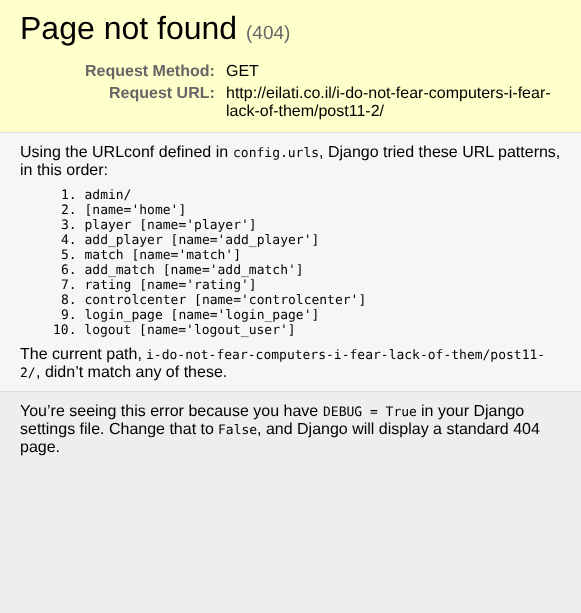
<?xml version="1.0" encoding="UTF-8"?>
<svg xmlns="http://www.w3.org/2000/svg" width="581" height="613">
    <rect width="100%" height="100%" fill="#EEEEEE"/>
    <rect x="0" y="0" width="581" height="132" fill="#FFFFCC"/>
    <rect x="0" y="132" width="581" height="1" fill="#DDDDDD"/>
    <text x="20" y="39" font-family="Liberation Sans" font-size="32" fill="#000000">Page not found</text>
    <text x="246" y="39" font-family="Liberation Sans" font-size="19" fill="#666666">(404)</text>
    <text x="85" y="76" font-family="Liberation Sans" font-size="16" font-weight="700" fill="#666666">Request Method:</text>
    <text x="226" y="76" font-family="Liberation Sans" font-size="16" fill="#000000">GET</text>
    <text x="109" y="98" font-family="Liberation Sans" font-size="16" font-weight="700" fill="#666666">Request URL:</text>
    <text font-family="Liberation Sans" font-size="16" fill="#000000">
        <tspan x="226" y="98">http://eilati.co.il/i-do-not-fear-computers-i-fear-</tspan>
        <tspan x="226" y="116">lack-of-them/post11-2/</tspan>
    </text>
    <rect x="0" y="133" width="581" height="258" fill="#F6F6F6"/>
    <rect x="0" y="391" width="581" height="1" fill="#DDDDDD"/>
    <text x="20" y="157" font-family="Liberation Sans" font-size="16" fill="#000000">Using the URLconf defined in</text>
    <text x="233" y="157" font-family="DejaVu Sans Mono" font-size="13" fill="#000000">config.urls</text>
    <text x="319" y="157" font-family="Liberation Sans" font-size="16" fill="#000000">, Django tried these URL patterns,</text>
    <text x="20" y="175" font-family="Liberation Sans" font-size="16" fill="#000000">in this order:</text>
    <text font-family="DejaVu Sans Mono" font-size="13" fill="#000000">
        <tspan x="61" y="199">1. admin/</tspan>
        <tspan x="61" y="214">2. [name='home']</tspan>
        <tspan x="61" y="229">3. player [name='player']</tspan>
        <tspan x="61" y="244">4. add_player [name='add_player']</tspan>
        <tspan x="61" y="259">5. match [name='match']</tspan>
        <tspan x="61" y="274">6. add_match [name='add_match']</tspan>
        <tspan x="61" y="289">7. rating [name='rating']</tspan>
        <tspan x="61" y="304">8. controlcenter [name='controlcenter']</tspan>
        <tspan x="61" y="319">9. login_page [name='login_page']</tspan>
    </text>
    <text x="53" y="334" font-family="DejaVu Sans Mono" font-size="13" fill="#000000">10. logout [name='logout_user']</text>
    <text x="20" y="359" font-family="Liberation Sans" font-size="16" fill="#000000">The current path,</text>
    <text x="146" y="359" font-family="DejaVu Sans Mono" font-size="13" fill="#000000">i-do-not-fear-computers-i-fear-lack-of-them/post11-</text>
    <text x="20" y="377" font-family="DejaVu Sans Mono" font-size="13" fill="#000000">2/</text>
    <text x="36" y="377" font-family="Liberation Sans" font-size="16" fill="#000000">, didn’t match any of these.</text>
    <text x="20" y="416" font-family="Liberation Sans" font-size="16" fill="#000000">You’re seeing this error because you have</text>
    <text x="323" y="416" font-family="DejaVu Sans Mono" font-size="13" fill="#000000">DEBUG = True</text>
    <text x="421" y="416" font-family="Liberation Sans" font-size="16" fill="#000000">in your Django</text>
    <text x="20" y="434" font-family="Liberation Sans" font-size="16" fill="#000000">settings file. Change that to</text>
    <text x="218" y="434" font-family="DejaVu Sans Mono" font-size="13" fill="#000000">False</text>
    <text x="257" y="434" font-family="Liberation Sans" font-size="16" fill="#000000">, and Django will display a standard 404</text>
    <text x="20" y="452" font-family="Liberation Sans" font-size="16" fill="#000000">page.</text>
</svg>
